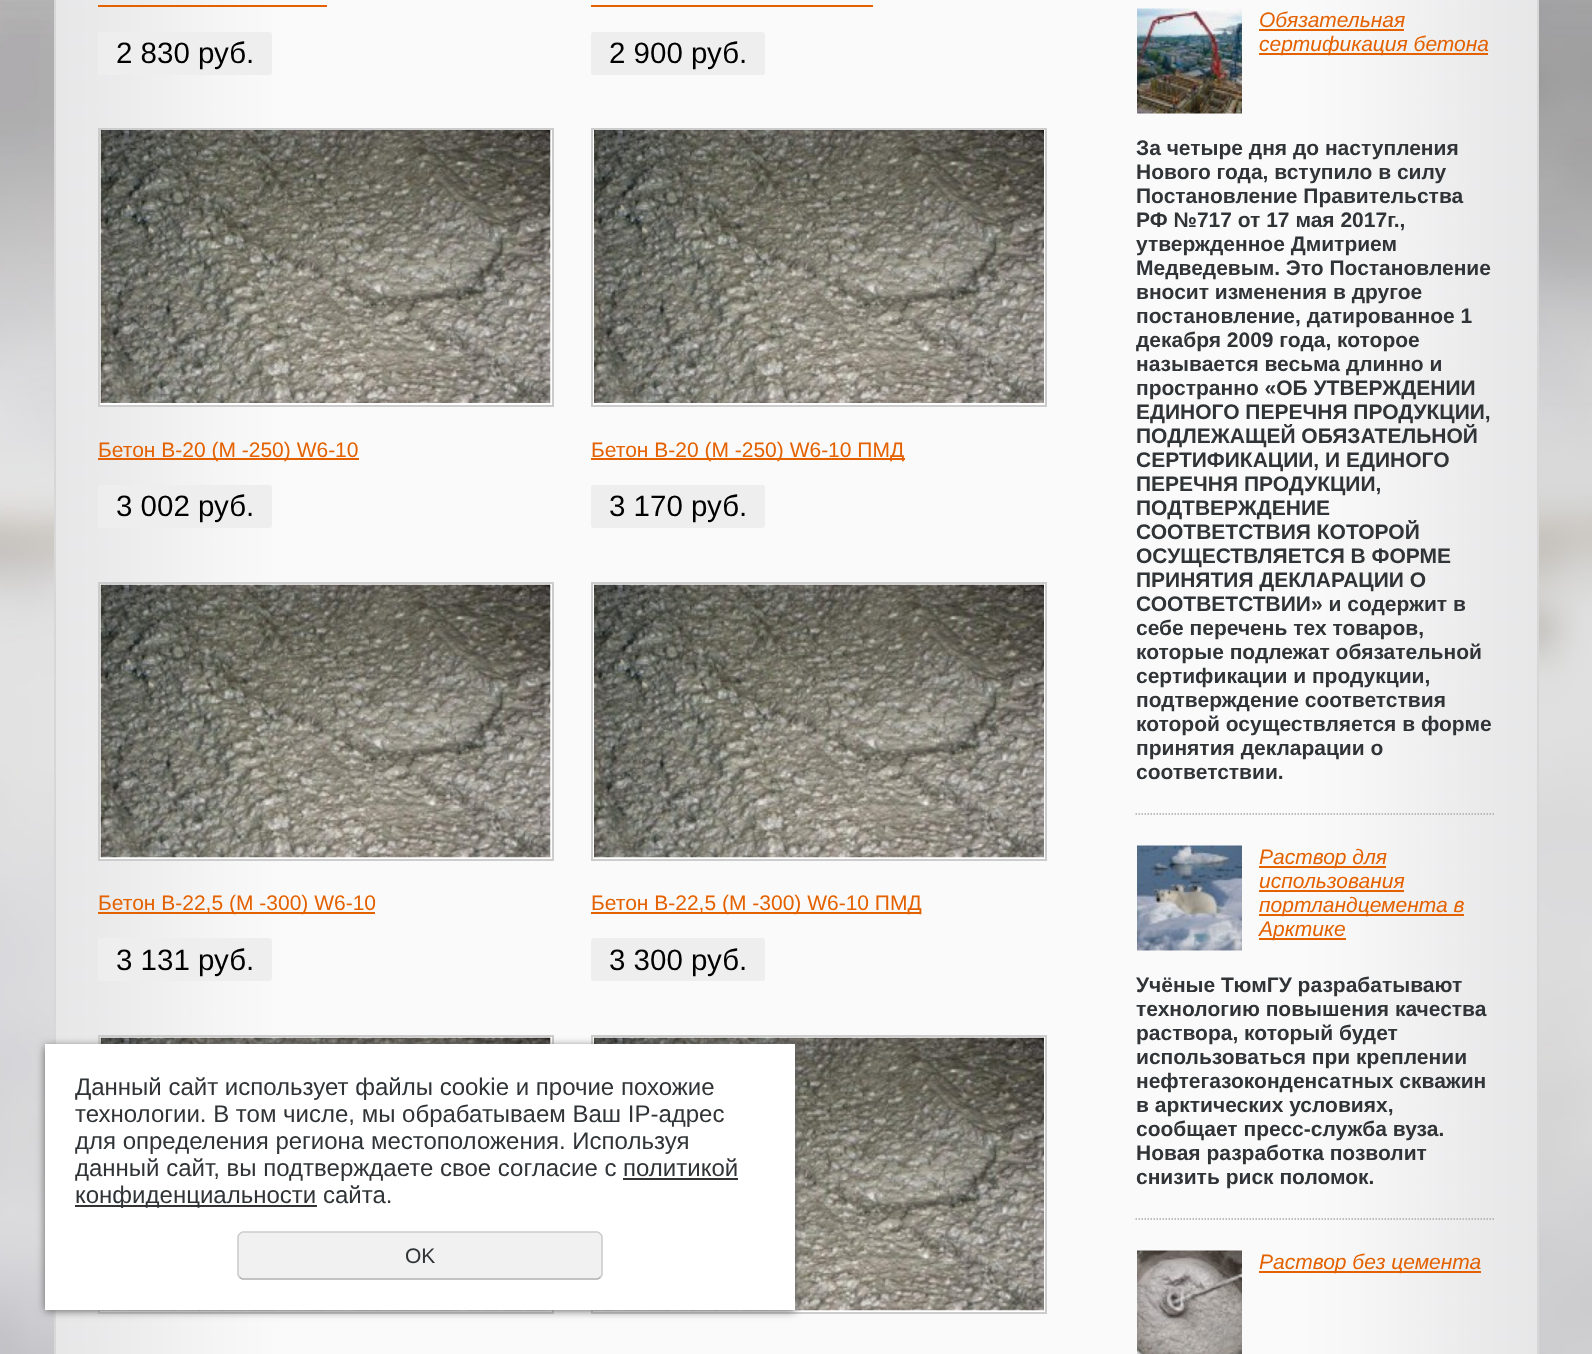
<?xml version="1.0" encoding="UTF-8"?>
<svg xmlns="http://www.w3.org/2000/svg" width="1592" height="1354">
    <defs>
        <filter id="blur1" x="-50%" y="-200%" width="200%" height="500%"><feGaussianBlur stdDeviation="4"/></filter>
    </defs>
    <rect width="100%" height="100%" fill="#FFFFFF"/>
    <image x="0" y="0" width="1592" height="1354" href="img_01.png"/>
    <image x="56" y="0" width="1481" height="1354" href="img_02.png"/>
    <rect x="55" y="-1" width="1483" height="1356" fill="none" stroke="#D7D7D8" stroke-width="2"/>
    <rect x="98" y="5" width="229" height="2" fill="#E46100"/>
    <rect x="98" y="32" width="174" height="43" rx="3" fill="#EEEEEE"/>
    <text x="116" y="63" font-family="Liberation Sans" font-size="29.5" fill="#000000">2 830 руб.</text>
    <rect x="591" y="5" width="282" height="2" fill="#E46100"/>
    <rect x="591" y="32" width="174" height="43" rx="3" fill="#EEEEEE"/>
    <text x="609" y="63" font-family="Liberation Sans" font-size="29.5" fill="#000000">2 900 руб.</text>
    <rect x="99" y="129" width="454" height="277" fill="#FFFFFF" stroke="#CCCCCC" stroke-width="2"/>
    <image x="100" y="130" width="451" height="273" href="img_03.png"/>
    <rect x="98" y="458" width="261" height="2" fill="#E46100"/>
    <text x="98" y="457" font-family="Liberation Sans" font-size="21" fill="#E46100">Бетон В-20 (М -250) W6-10</text>
    <rect x="98" y="485" width="174" height="43" rx="3" fill="#EEEEEE"/>
    <text x="116" y="516" font-family="Liberation Sans" font-size="29.5" fill="#000000">3 002 руб.</text>
    <rect x="592" y="129" width="454" height="277" fill="#FFFFFF" stroke="#CCCCCC" stroke-width="2"/>
    <image x="594" y="130" width="450" height="273" href="img_04.png"/>
    <rect x="591" y="458" width="314" height="2" fill="#E46100"/>
    <text x="591" y="457" font-family="Liberation Sans" font-size="21" fill="#E46100">Бетон В-20 (М -250) W6-10 ПМД</text>
    <rect x="591" y="485" width="174" height="43" rx="3" fill="#EEEEEE"/>
    <text x="609" y="516" font-family="Liberation Sans" font-size="29.5" fill="#000000">3 170 руб.</text>
    <rect x="99" y="583" width="454" height="277" fill="#FFFFFF" stroke="#CCCCCC" stroke-width="2"/>
    <image x="100" y="584" width="451" height="274" href="img_05.png"/>
    <rect x="98" y="912" width="277" height="2" fill="#E46100"/>
    <text x="98" y="910" font-family="Liberation Sans" font-size="21" fill="#E46100">Бетон В-22,5 (М -300) W6-10</text>
    <rect x="98" y="938" width="174" height="43" rx="3" fill="#EEEEEE"/>
    <text x="116" y="970" font-family="Liberation Sans" font-size="29.5" fill="#000000">3 131 руб.</text>
    <rect x="592" y="583" width="454" height="277" fill="#FFFFFF" stroke="#CCCCCC" stroke-width="2"/>
    <image x="594" y="584" width="450" height="274" href="img_06.png"/>
    <rect x="591" y="912" width="330" height="2" fill="#E46100"/>
    <text x="591" y="910" font-family="Liberation Sans" font-size="21" fill="#E46100">Бетон В-22,5 (М -300) W6-10 ПМД</text>
    <rect x="591" y="938" width="174" height="43" rx="3" fill="#EEEEEE"/>
    <text x="609" y="970" font-family="Liberation Sans" font-size="29.5" fill="#000000">3 300 руб.</text>
    <rect x="99" y="1036" width="454" height="277" fill="#FFFFFF" stroke="#CCCCCC" stroke-width="2"/>
    <image x="100" y="1037" width="451" height="274" href="img_05.png"/>
    <rect x="592" y="1036" width="454" height="277" fill="#FFFFFF" stroke="#CCCCCC" stroke-width="2"/>
    <image x="594" y="1037" width="450" height="274" href="img_06.png"/>
    <path d="M 1135.5 814 H 1495.5" fill="none" stroke="#ABABAB" stroke-width="1.5" stroke-dasharray="1.5 1.5"/>
    <image x="1137" y="8" width="105" height="106" href="img_07.png"/>
    <text x="1259" y="27" font-family="Liberation Sans" font-size="21" font-style="italic" fill="#E46100">Обязательная</text>
    <rect x="1259" y="29" width="145" height="2" fill="#E46100"/>
    <rect x="1259" y="53" width="229" height="2" fill="#E46100"/>
    <text x="1259" y="51" font-family="Liberation Sans" font-size="21" font-style="italic" fill="#E46100">сертификация бетона</text>
    <text font-family="Liberation Sans" font-size="21" font-weight="700" fill="#303436">
        <tspan x="1136" y="155">За четыре дня до наступления</tspan>
        <tspan x="1136" y="179">Нового года, вступило в силу</tspan>
        <tspan x="1136" y="203">Постановление Правительства</tspan>
        <tspan x="1136" y="227">РФ №717 от 17 мая 2017г.,</tspan>
        <tspan x="1136" y="251">утвержденное Дмитрием</tspan>
        <tspan x="1136" y="275">Медведевым. Это Постановление</tspan>
        <tspan x="1136" y="299">вносит изменения в другое</tspan>
        <tspan x="1136" y="323">постановление, датированное 1</tspan>
        <tspan x="1136" y="347">декабря 2009 года, которое</tspan>
        <tspan x="1136" y="371">называется весьма длинно и</tspan>
        <tspan x="1136" y="395">пространно «ОБ УТВЕРЖДЕНИИ</tspan>
        <tspan x="1136" y="419">ЕДИНОГО ПЕРЕЧНЯ ПРОДУКЦИИ,</tspan>
        <tspan x="1136" y="443">ПОДЛЕЖАЩЕЙ ОБЯЗАТЕЛЬНОЙ</tspan>
        <tspan x="1136" y="467">СЕРТИФИКАЦИИ, И ЕДИНОГО</tspan>
        <tspan x="1136" y="491">ПЕРЕЧНЯ ПРОДУКЦИИ,</tspan>
        <tspan x="1136" y="515">ПОДТВЕРЖДЕНИЕ</tspan>
        <tspan x="1136" y="539">СООТВЕТСТВИЯ КОТОРОЙ</tspan>
        <tspan x="1136" y="563">ОСУЩЕСТВЛЯЕТСЯ В ФОРМЕ</tspan>
        <tspan x="1136" y="587">ПРИНЯТИЯ ДЕКЛАРАЦИИ О</tspan>
        <tspan x="1136" y="611">СООТВЕТСТВИИ» и содержит в</tspan>
        <tspan x="1136" y="635">себе перечень тех товаров,</tspan>
        <tspan x="1136" y="659">которые подлежат обязательной</tspan>
        <tspan x="1136" y="683">сертификации и продукции,</tspan>
        <tspan x="1136" y="707">подтверждение соответствия</tspan>
        <tspan x="1136" y="731">которой осуществляется в форме</tspan>
        <tspan x="1136" y="755">принятия декларации о</tspan>
        <tspan x="1136" y="779">соответствии.</tspan>
    </text>
    <path d="M 1135.5 1219 H 1495.5" fill="none" stroke="#ABABAB" stroke-width="1.5" stroke-dasharray="1.5 1.5"/>
    <image x="1137" y="845" width="105" height="106" href="img_08.png"/>
    <rect x="1259" y="866" width="127" height="2" fill="#E46100"/>
    <text font-family="Liberation Sans" font-size="21" font-style="italic" fill="#E46100">
        <tspan x="1259" y="864">Раствор для</tspan>
        <tspan x="1259" y="888">использования</tspan>
    </text>
    <rect x="1259" y="890" width="145" height="2" fill="#E46100"/>
    <rect x="1259" y="914" width="205" height="2" fill="#E46100"/>
    <text x="1259" y="912" font-family="Liberation Sans" font-size="21" font-style="italic" fill="#E46100">портландцемента в</text>
    <rect x="1259" y="938" width="87" height="2" fill="#E46100"/>
    <text x="1259" y="936" font-family="Liberation Sans" font-size="21" font-style="italic" fill="#E46100">Арктике</text>
    <text font-family="Liberation Sans" font-size="21" font-weight="700" fill="#303436">
        <tspan x="1136" y="992">Учёные ТюмГУ разрабатывают</tspan>
        <tspan x="1136" y="1016">технологию повышения качества</tspan>
        <tspan x="1136" y="1040">раствора, который будет</tspan>
        <tspan x="1136" y="1064">использоваться при креплении</tspan>
        <tspan x="1136" y="1088">нефтегазоконденсатных скважин</tspan>
        <tspan x="1136" y="1112">в арктических условиях,</tspan>
        <tspan x="1136" y="1136">сообщает пресс-служба вуза.</tspan>
        <tspan x="1136" y="1160">Новая разработка позволит</tspan>
        <tspan x="1136" y="1184">снизить риск поломок.</tspan>
    </text>
    <image x="1137" y="1250" width="105" height="104" href="img_09.png"/>
    <rect x="1259" y="1271" width="222" height="2" fill="#E46100"/>
    <text x="1259" y="1269" font-family="Liberation Sans" font-size="21" font-style="italic" fill="#E46100">Раствор без цемента</text>
    <rect x="45" y="1046" width="750" height="265" fill="#666666" filter="url(#blur1)"/>
    <rect x="45" y="1044" width="750" height="266" fill="#FFFFFF"/>
    <text font-family="Liberation Sans" font-size="24" fill="#303436">
        <tspan x="75" y="1095">Данный сайт использует файлы cookie и прочие похожие</tspan>
        <tspan x="75" y="1122">технологии. В том числе, мы обрабатываем Ваш IP-адрес</tspan>
        <tspan x="75" y="1149">для определения региона местоположения. Используя</tspan>
        <tspan x="75" y="1176">данный сайт, вы подтверждаете свое согласие с</tspan>
    </text>
    <text x="623" y="1176" font-family="Liberation Sans" font-size="24" fill="#303436">политикой</text>
    <rect x="623" y="1178" width="115" height="2" fill="#333333"/>
    <rect x="75" y="1205" width="242" height="2" fill="#333333"/>
    <text x="75" y="1203" font-family="Liberation Sans" font-size="24" fill="#303436">конфиденциальности</text>
    <text x="323" y="1203" font-family="Liberation Sans" font-size="24" fill="#303436">сайта.</text>
    <rect x="237" y="1232" width="366" height="48" rx="6" fill="#F1F1F1"/>
    <path d="M 600.5 1277 C 599.5 1278 598.5 1279 597 1279 H 243 C 241.5 1279 240.5 1278 239.5 1277" fill="none" stroke="#B3B3B3" stroke-width="1.5"/>
    <path d="M 239.5 1277 C 238.5 1276 238 1275 238 1273.5 V 1237.5 C 238 1236 238.5 1235 239.5 1234 C 240.5 1233 241.5 1232 243 1232 H 597 C 598.5 1232 599.5 1233 600.5 1234 C 601.5 1235 602 1236 602 1237.5 V 1273.5 C 602 1275 601.5 1276 600.5 1277" fill="none" stroke="#CCCCCC" stroke-width="1.5"/>
    <text x="405" y="1263" font-family="Liberation Sans" font-size="21" fill="#303436">OK</text>
</svg>
